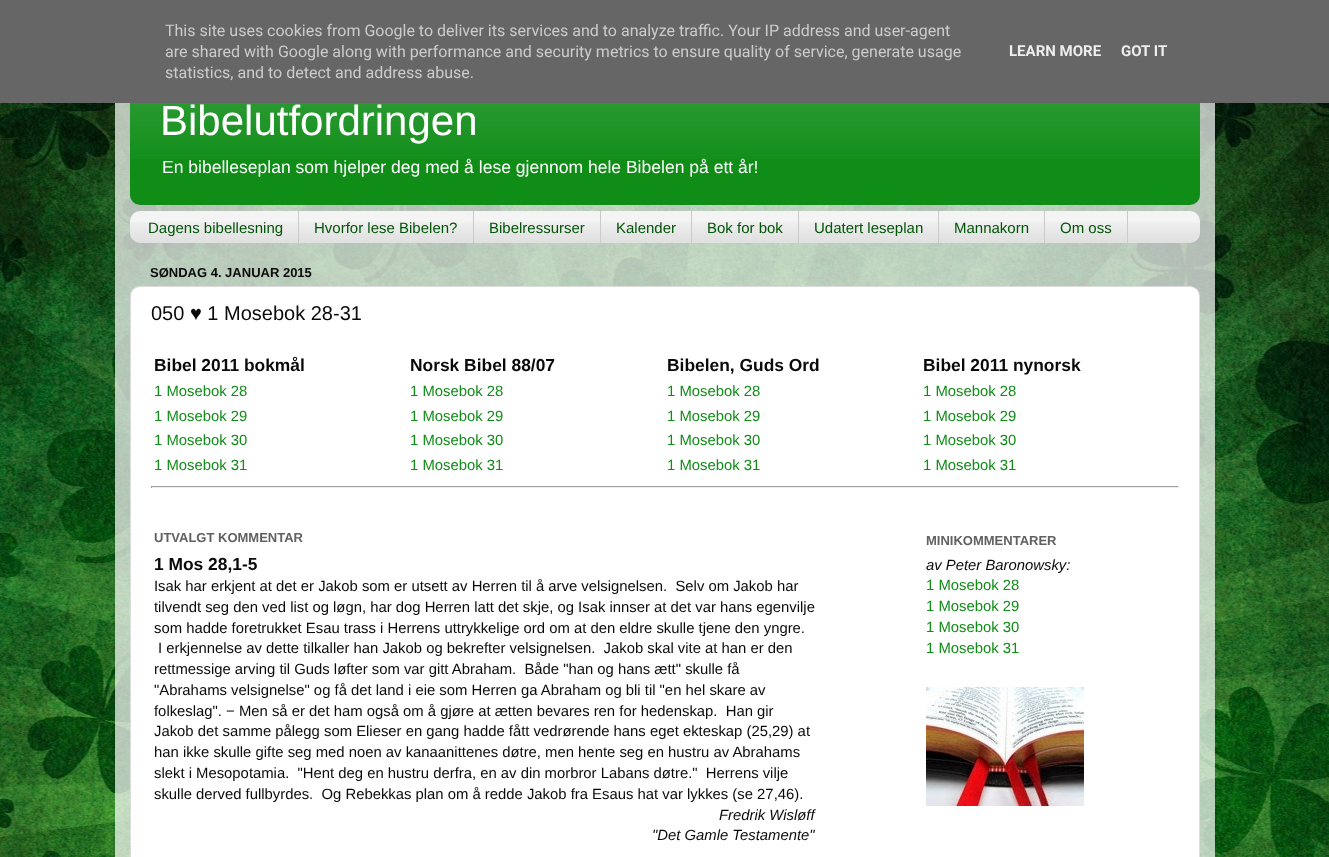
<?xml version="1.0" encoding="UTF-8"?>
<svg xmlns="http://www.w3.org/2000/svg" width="1329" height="857">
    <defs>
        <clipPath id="clip1"><path d="M 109 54 H 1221 V 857 H 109 Z M 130 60 H 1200 C 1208.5 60 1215 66.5 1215 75 V 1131 C 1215 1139.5 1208.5 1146 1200 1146 H 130 C 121.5 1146 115 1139.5 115 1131 V 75 C 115 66.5 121.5 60 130 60 Z" clip-rule="evenodd"/></clipPath>
        <filter id="blur1" x="-50%" y="-200%" width="200%" height="500%"><feGaussianBlur stdDeviation="1.5"/></filter>
    </defs>
    <rect width="100%" height="100%" fill="#FFFFFF"/>
    <image x="0" y="103" width="1329" height="754" href="img_01.png"/>
    <g clip-path="url(#clip1)">
        <rect x="115" y="60" width="1100" height="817" rx="15" fill="#000000" fill-opacity="0.15" filter="url(#blur1)"/>
    </g>
    <image x="115" y="103" width="1100" height="754" href="img_02.png"/>
    <rect x="130" y="75" width="1070" height="130" rx="10" fill="#0F8D17"/>
    <rect x="0" y="0" width="1329" height="103" fill="#666666"/>
    <text font-family="Roboto" font-size="16" fill="#CCCCCC">
        <tspan x="165" y="36">This site uses cookies from Google to deliver its services and to analyze traffic. Your IP address and user-agent</tspan>
        <tspan x="165" y="57">are shared with Google along with performance and security metrics to ensure quality of service, generate usage</tspan>
        <tspan x="165" y="78">statistics, and to detect and address abuse.</tspan>
    </text>
    <text x="1009" y="56" font-family="Roboto" font-size="15" font-weight="700" fill="#EEEEEE">LEARN MORE</text>
    <text x="1121" y="56" font-family="Roboto" font-size="15" font-weight="700" fill="#EEEEEE">GOT IT</text>
    <image x="130" y="103" width="1070" height="56" href="img_03.png"/>
    <text x="160" y="135" font-family="Liberation Sans" font-size="42" fill="#FFFFFF">Bibelutfordringen</text>
    <text x="162" y="173" font-family="Liberation Sans" font-size="17.55" fill="#FFFFFF">En bibelleseplan som hjelper deg med å lese gjennom hele Bibelen på ett år!</text>
    <rect x="130" y="211" width="1070" height="32" rx="10" fill="#F4F4F4"/>
    <image x="130" y="222" width="1070" height="21" href="img_04.png"/>
    <rect x="298" y="211" width="1" height="32" fill="#CACACA"/>
    <text x="148" y="233" font-family="Liberation Sans" font-size="15" fill="#005506">Dagens bibellesning</text>
    <rect x="473" y="211" width="1" height="32" fill="#CACACA"/>
    <text x="314" y="233" font-family="Liberation Sans" font-size="15" fill="#005506">Hvorfor lese Bibelen?</text>
    <rect x="600" y="211" width="1" height="32" fill="#CACACA"/>
    <text x="489" y="233" font-family="Liberation Sans" font-size="15" fill="#005506">Bibelressurser</text>
    <rect x="691" y="211" width="1" height="32" fill="#CACACA"/>
    <text x="616" y="233" font-family="Liberation Sans" font-size="15" fill="#005506">Kalender</text>
    <rect x="798" y="211" width="1" height="32" fill="#CACACA"/>
    <text x="707" y="233" font-family="Liberation Sans" font-size="15" fill="#005506">Bok for bok</text>
    <rect x="938" y="211" width="1" height="32" fill="#CACACA"/>
    <text x="814" y="233" font-family="Liberation Sans" font-size="15" fill="#005506">Udatert leseplan</text>
    <rect x="1044" y="211" width="1" height="32" fill="#CACACA"/>
    <text x="954" y="233" font-family="Liberation Sans" font-size="15" fill="#005506">Mannakorn</text>
    <rect x="1127" y="211" width="1" height="32" fill="#CACACA"/>
    <text x="1060" y="233" font-family="Liberation Sans" font-size="15" fill="#005506">Om oss</text>
    <text x="150" y="277" font-family="Liberation Sans" font-size="13" font-weight="700" fill="#0A0A0A">SØNDAG 4. JANUAR 2015</text>
    <rect x="130.5" y="286.5" width="1069" height="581" rx="9.5" fill="#FFFFFF" stroke="#DCDCDC"/>
    <text x="151" y="320" font-family="Liberation Sans" font-size="20" fill="#0A0A0A">050 ♥ 1 Mosebok 28-31</text>
    <text x="154" y="371" font-family="Liberation Sans" font-size="17.4" font-weight="700" fill="#0A0A0A">Bibel 2011 bokmål</text>
    <text x="410" y="371" font-family="Liberation Sans" font-size="17.4" font-weight="700" fill="#0A0A0A">Norsk Bibel 88/07</text>
    <text x="667" y="371" font-family="Liberation Sans" font-size="17.4" font-weight="700" fill="#0A0A0A">Bibelen, Guds Ord</text>
    <text x="923" y="371" font-family="Liberation Sans" font-size="17.4" font-weight="700" fill="#0A0A0A">Bibel 2011 nynorsk</text>
    <text x="154" y="396" font-family="Liberation Sans" font-size="14.85" fill="#0F8D17">1 Mosebok 28</text>
    <text x="410" y="396" font-family="Liberation Sans" font-size="14.85" fill="#0F8D17">1 Mosebok 28</text>
    <text x="667" y="396" font-family="Liberation Sans" font-size="14.85" fill="#0F8D17">1 Mosebok 28</text>
    <text x="923" y="396" font-family="Liberation Sans" font-size="14.85" fill="#0F8D17">1 Mosebok 28</text>
    <text x="154" y="421" font-family="Liberation Sans" font-size="14.85" fill="#0F8D17">1 Mosebok 29</text>
    <text x="410" y="421" font-family="Liberation Sans" font-size="14.85" fill="#0F8D17">1 Mosebok 29</text>
    <text x="667" y="421" font-family="Liberation Sans" font-size="14.85" fill="#0F8D17">1 Mosebok 29</text>
    <text x="923" y="421" font-family="Liberation Sans" font-size="14.85" fill="#0F8D17">1 Mosebok 29</text>
    <text x="154" y="445" font-family="Liberation Sans" font-size="14.85" fill="#0F8D17">1 Mosebok 30</text>
    <text x="410" y="445" font-family="Liberation Sans" font-size="14.85" fill="#0F8D17">1 Mosebok 30</text>
    <text x="667" y="445" font-family="Liberation Sans" font-size="14.85" fill="#0F8D17">1 Mosebok 30</text>
    <text x="923" y="445" font-family="Liberation Sans" font-size="14.85" fill="#0F8D17">1 Mosebok 30</text>
    <text x="154" y="470" font-family="Liberation Sans" font-size="14.85" fill="#0F8D17">1 Mosebok 31</text>
    <text x="410" y="470" font-family="Liberation Sans" font-size="14.85" fill="#0F8D17">1 Mosebok 31</text>
    <text x="667" y="470" font-family="Liberation Sans" font-size="14.85" fill="#0F8D17">1 Mosebok 31</text>
    <text x="923" y="470" font-family="Liberation Sans" font-size="14.85" fill="#0F8D17">1 Mosebok 31</text>
    <rect x="151" y="486" width="1028" height="1" fill="#9F9F9F"/>
    <rect x="1178" y="486" width="1" height="2" fill="#EEEEEE"/>
    <rect x="151" y="487" width="1028" height="1" fill="#EEEEEE"/>
    <rect x="151" y="486" width="1" height="2" fill="#9F9F9F"/>
    <text x="154" y="542" font-family="Liberation Sans" font-size="13" font-weight="700" fill="#616161">UTVALGT KOMMENTAR</text>
    <text x="154" y="570" font-family="Liberation Sans" font-size="17.4" font-weight="700" fill="#0A0A0A">1 Mos 28,1-5</text>
    <text font-family="Liberation Sans" font-size="14.85" fill="#0A0A0A" xml:space="preserve"><tspan x="154" y="591">Isak har erkjent at det er Jakob som er utsett av Herren til å arve velsignelsen.  Selv om Jakob har</tspan><tspan x="154" y="612">tilvendt seg den ved list og løgn, har dog Herren latt det skje, og Isak innser at det var hans egenvilje</tspan><tspan x="154" y="633">som hadde foretrukket Esau trass i Herrens uttrykkelige ord om at den eldre skulle tjene den yngre.</tspan></text>
    <text x="158" y="653" font-family="Liberation Sans" font-size="14.85" fill="#0A0A0A" xml:space="preserve">I erkjennelse av dette tilkaller han Jakob og bekrefter velsignelsen.  Jakob skal vite at han er den</text>
    <text font-family="Liberation Sans" font-size="14.85" fill="#0A0A0A" xml:space="preserve"><tspan x="154" y="674">rettmessige arving til Guds løfter som var gitt Abraham.  Både "han og hans ætt" skulle få</tspan><tspan x="154" y="695">"Abrahams velsignelse" og få det land i eie som Herren ga Abraham og bli til "en hel skare av</tspan><tspan x="154" y="716">folkeslag". − Men så er det ham også om å gjøre at ætten bevares ren for hedenskap.  Han gir</tspan><tspan x="154" y="736">Jakob det samme pålegg som Elieser en gang hadde fått vedrørende hans eget ekteskap (25,29) at</tspan><tspan x="154" y="757">han ikke skulle gifte seg med noen av kanaanittenes døtre, men hente seg en hustru av Abrahams</tspan><tspan x="154" y="778">slekt i Mesopotamia.  "Hent deg en hustru derfra, en av din morbror Labans døtre."  Herrens vilje</tspan><tspan x="154" y="799">skulle derved fullbyrdes.  Og Rebekkas plan om å redde Jakob fra Esaus hat var lykkes (se 27,46).</tspan></text>
    <text x="719" y="820" font-family="Liberation Sans" font-size="14.85" font-style="italic" fill="#0A0A0A">Fredrik Wisløff</text>
    <text x="652" y="840" font-family="Liberation Sans" font-size="14.85" font-style="italic" fill="#0A0A0A">"Det Gamle Testamente"</text>
    <text x="926" y="545" font-family="Liberation Sans" font-size="13" font-weight="700" fill="#616161">MINIKOMMENTARER</text>
    <text x="926" y="570" font-family="Liberation Sans" font-size="14.85" font-style="italic" fill="#0A0A0A">av Peter Baronowsky:</text>
    <text font-family="Liberation Sans" font-size="14.85" fill="#0F8D17">
        <tspan x="926" y="590">1 Mosebok 28</tspan>
        <tspan x="926" y="611">1 Mosebok 29</tspan>
        <tspan x="926" y="632">1 Mosebok 30</tspan>
        <tspan x="926" y="653">1 Mosebok 31</tspan>
    </text>
    <image x="926" y="687" width="158" height="119" href="img_05.png"/>
</svg>
